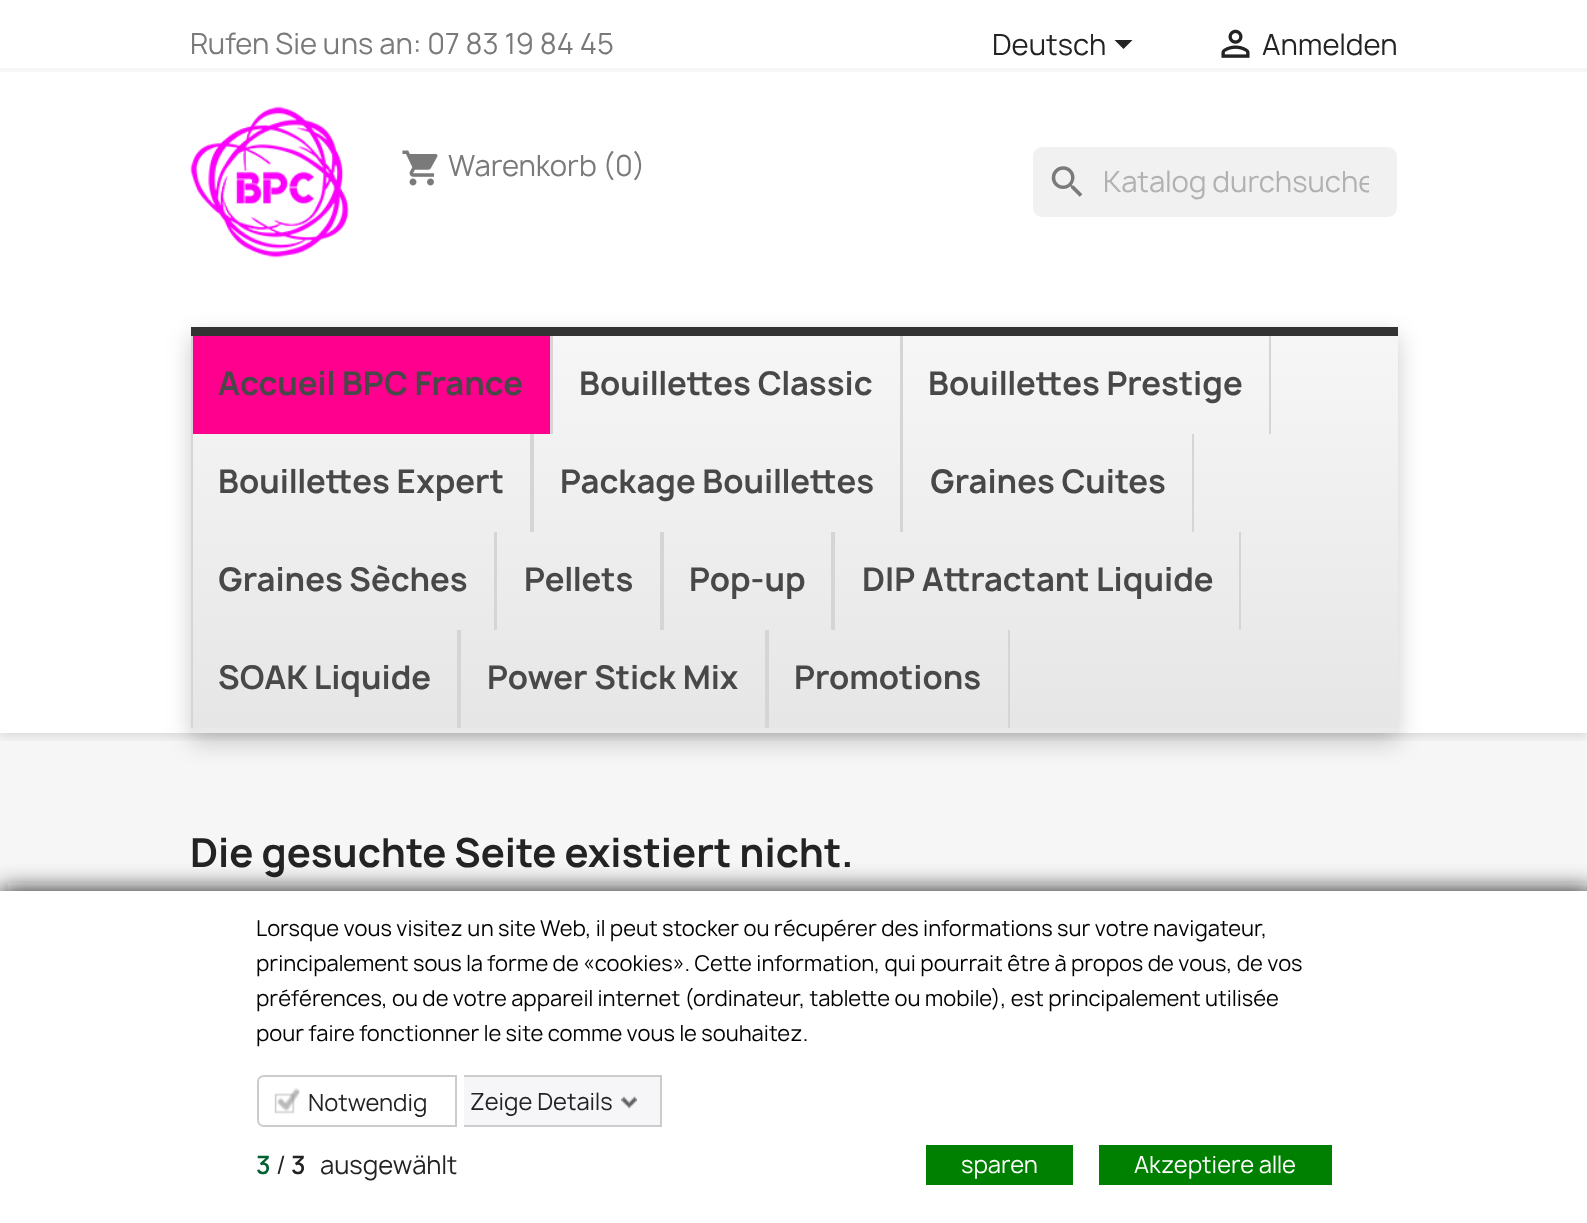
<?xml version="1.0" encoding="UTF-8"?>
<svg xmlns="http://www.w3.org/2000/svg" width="1587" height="1223">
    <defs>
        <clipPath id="clip1"><rect x="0" y="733" width="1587" height="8"/></clipPath>
        <filter id="blur1" x="-50%" y="-200%" width="200%" height="500%"><feGaussianBlur stdDeviation="4.5"/></filter>
        <clipPath id="clip2"><rect x="1103" y="159" width="266" height="48"/></clipPath>
        <filter id="blur2" x="-50%" y="-200%" width="200%" height="500%"><feGaussianBlur stdDeviation="11.5"/></filter>
        <linearGradient id="g1" gradientUnits="userSpaceOnUse" x1="191" y1="336" x2="191" y2="728"><stop offset="0" stop-color="#F6F6F6"/><stop offset="1" stop-color="#E6E6E6"/></linearGradient>
        <filter id="blur3" x="-50%" y="-200%" width="200%" height="500%"><feGaussianBlur stdDeviation="12"/></filter>
    </defs>
    <rect width="100%" height="100%" fill="#FFFFFF"/>
    <rect x="0" y="733" width="1587" height="158" fill="#F6F6F6"/>
    <g clip-path="url(#clip1)">
        <rect x="0" y="4" width="1587" height="733" fill="#000000" fill-opacity="0.11" filter="url(#blur1)"/>
    </g>
    <rect x="0" y="68" width="1587" height="4" fill="#F6F6F6"/>
    <text x="190" y="54" font-family="Manrope" font-size="28" fill="#7A7A7A">Rufen Sie uns an: 07 83 19 84 45</text>
    <text x="992" y="55" font-family="Manrope" font-size="28" fill="#232323">Deutsch</text>
    <path d="M 1114.5 40 H 1132.5 L 1123.5 49 Z" fill="#232323"/>
    <image x="1221" y="29" width="29" height="29" href="img_01.png"/>
    <text x="1262" y="55" font-family="Manrope" font-size="28" fill="#232323">Anmelden</text>
    <image x="190" y="106" width="159" height="152" href="img_02.png"/>
    <image x="402" y="150" width="36" height="36" href="img_03.png"/>
    <text x="448" y="176" font-family="Manrope" font-size="28" fill="#7A7A7A">Warenkorb (0)</text>
    <rect x="1033" y="147" width="364" height="70" rx="9" fill="#F1F1F1"/>
    <image x="1051" y="166" width="32" height="31" href="img_04.png"/>
    <g clip-path="url(#clip2)">
        <text x="1103" y="192" font-family="Manrope" font-size="28" fill="#B1B1B1">Katalog durchsuche</text>
    </g>
    <rect x="191" y="336" width="1207" height="406" fill="#000000" fill-opacity="0.2" filter="url(#blur2)"/>
    <rect x="191" y="327" width="1207" height="9" fill="#333333"/>
    <rect x="193" y="336" width="1205" height="392" fill="url(#g1)"/>
    <rect x="191" y="728" width="1207" height="5" fill="#E9E9E9"/>
    <rect x="550" y="336" width="3" height="98" fill="#D6D4D4"/>
    <rect x="191" y="336" width="2" height="392" fill="#D6D4D4"/>
    <rect x="193" y="336" width="357" height="98" fill="#FF008E"/>
    <text x="218" y="395" font-family="Manrope" font-size="31.5" font-weight="700" fill="#484848">Accueil BPC France</text>
    <rect x="900" y="336" width="3" height="98" fill="#D6D4D4"/>
    <text x="579" y="395" font-family="Manrope" font-size="31.5" font-weight="700" fill="#484848">Bouillettes Classic</text>
    <rect x="1269" y="336" width="2" height="98" fill="#D6D4D4"/>
    <text x="928" y="395" font-family="Manrope" font-size="31.5" font-weight="700" fill="#484848">Bouillettes Prestige</text>
    <rect x="530" y="434" width="4" height="98" fill="#D6D4D4"/>
    <text x="218" y="493" font-family="Manrope" font-size="31.5" font-weight="700" fill="#484848">Bouillettes Expert</text>
    <rect x="900" y="434" width="3" height="98" fill="#D6D4D4"/>
    <text x="560" y="493" font-family="Manrope" font-size="31.5" font-weight="700" fill="#484848">Package Bouillettes</text>
    <rect x="1192" y="434" width="2" height="98" fill="#D6D4D4"/>
    <text x="930" y="493" font-family="Manrope" font-size="31.5" font-weight="700" fill="#484848">Graines Cuites</text>
    <rect x="494" y="532" width="3" height="98" fill="#D6D4D4"/>
    <text x="218" y="591" font-family="Manrope" font-size="31.5" font-weight="700" fill="#484848">Graines Sèches</text>
    <rect x="660" y="532" width="4" height="98" fill="#D6D4D4"/>
    <text x="524" y="591" font-family="Manrope" font-size="31.5" font-weight="700" fill="#484848">Pellets</text>
    <rect x="831" y="532" width="4" height="98" fill="#D6D4D4"/>
    <text x="689" y="591" font-family="Manrope" font-size="31.5" font-weight="700" fill="#484848">Pop-up</text>
    <rect x="1239" y="532" width="2" height="98" fill="#D6D4D4"/>
    <text x="862" y="591" font-family="Manrope" font-size="31.5" font-weight="700" fill="#484848">DIP Attractant Liquide</text>
    <rect x="457" y="630" width="4" height="98" fill="#D6D4D4"/>
    <text x="218" y="689" font-family="Manrope" font-size="31.5" font-weight="700" fill="#484848">SOAK Liquide</text>
    <rect x="765" y="630" width="4" height="98" fill="#D6D4D4"/>
    <text x="487" y="689" font-family="Manrope" font-size="31.5" font-weight="700" fill="#484848">Power Stick Mix</text>
    <rect x="1008" y="630" width="2" height="98" fill="#D6D4D4"/>
    <text x="794" y="689" font-family="Manrope" font-size="31.5" font-weight="700" fill="#484848">Promotions</text>
    <text x="190" y="867" font-family="Manrope" font-size="38.5" font-weight="700" fill="#232323">Die gesuchte Seite existiert nicht.</text>
    <rect x="0" y="891" width="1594" height="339" fill="#121212" filter="url(#blur3)"/>
    <rect x="0" y="891" width="1587" height="332" fill="#FFFFFF"/>
    <text font-family="Manrope" font-size="21" fill="#000000">
        <tspan x="256" y="936">Lorsque vous visitez un site Web, il peut stocker ou récupérer des informations sur votre navigateur,</tspan>
        <tspan x="256" y="971">principalement sous la forme de «cookies». Cette information, qui pourrait être à propos de vous, de vos</tspan>
        <tspan x="256" y="1006">préférences, ou de votre appareil internet (ordinateur, tablette ou mobile), est principalement utilisée</tspan>
        <tspan x="256" y="1041">pour faire fonctionner le site comme vous le souhaitez.</tspan>
    </text>
    <path d="M 264 1076 H 456 V 1126 H 264 C 260.5 1126 258 1123.5 258 1120 V 1082 C 258 1078.5 260.5 1076 264 1076 Z" fill="none" stroke="#CCCCCC" stroke-width="2"/>
    <image x="274" y="1088" width="26" height="26" href="img_05.png"/>
    <text x="308" y="1111" font-family="Manrope" font-size="22.75" fill="#232323">Notwendig</text>
    <rect x="464" y="1077" width="196" height="48" fill="#F6F6F9"/>
    <rect x="464" y="1075" width="198" height="2" fill="#CCCCCC"/>
    <rect x="660" y="1075" width="2" height="52" fill="#CCCCCC"/>
    <rect x="464" y="1125" width="198" height="2" fill="#CCCCCC"/>
    <text x="470" y="1110" font-family="Manrope" font-size="22.75" fill="#232323">Zeige Details</text>
    <image x="621" y="1096" width="16" height="13" href="img_06.png"/>
    <text x="256" y="1174" font-family="Manrope" font-size="24.5" font-weight="600" fill="#006131">3</text>
    <text x="276" y="1174" font-family="Manrope" font-size="24.5" fill="#232323">/</text>
    <text x="291" y="1174" font-family="Manrope" font-size="24.5" font-weight="600" fill="#232323">3</text>
    <text x="320" y="1174" font-family="Manrope" font-size="24.5" fill="#232323">ausgewählt</text>
    <rect x="926" y="1145" width="147" height="40" fill="#008000"/>
    <text x="961" y="1173" font-family="Manrope" font-size="22.75" fill="#FFFFFF">sparen</text>
    <rect x="1099" y="1145" width="233" height="40" fill="#008000"/>
    <text x="1134" y="1173" font-family="Manrope" font-size="22.75" fill="#FFFFFF">Akzeptiere alle</text>
</svg>
